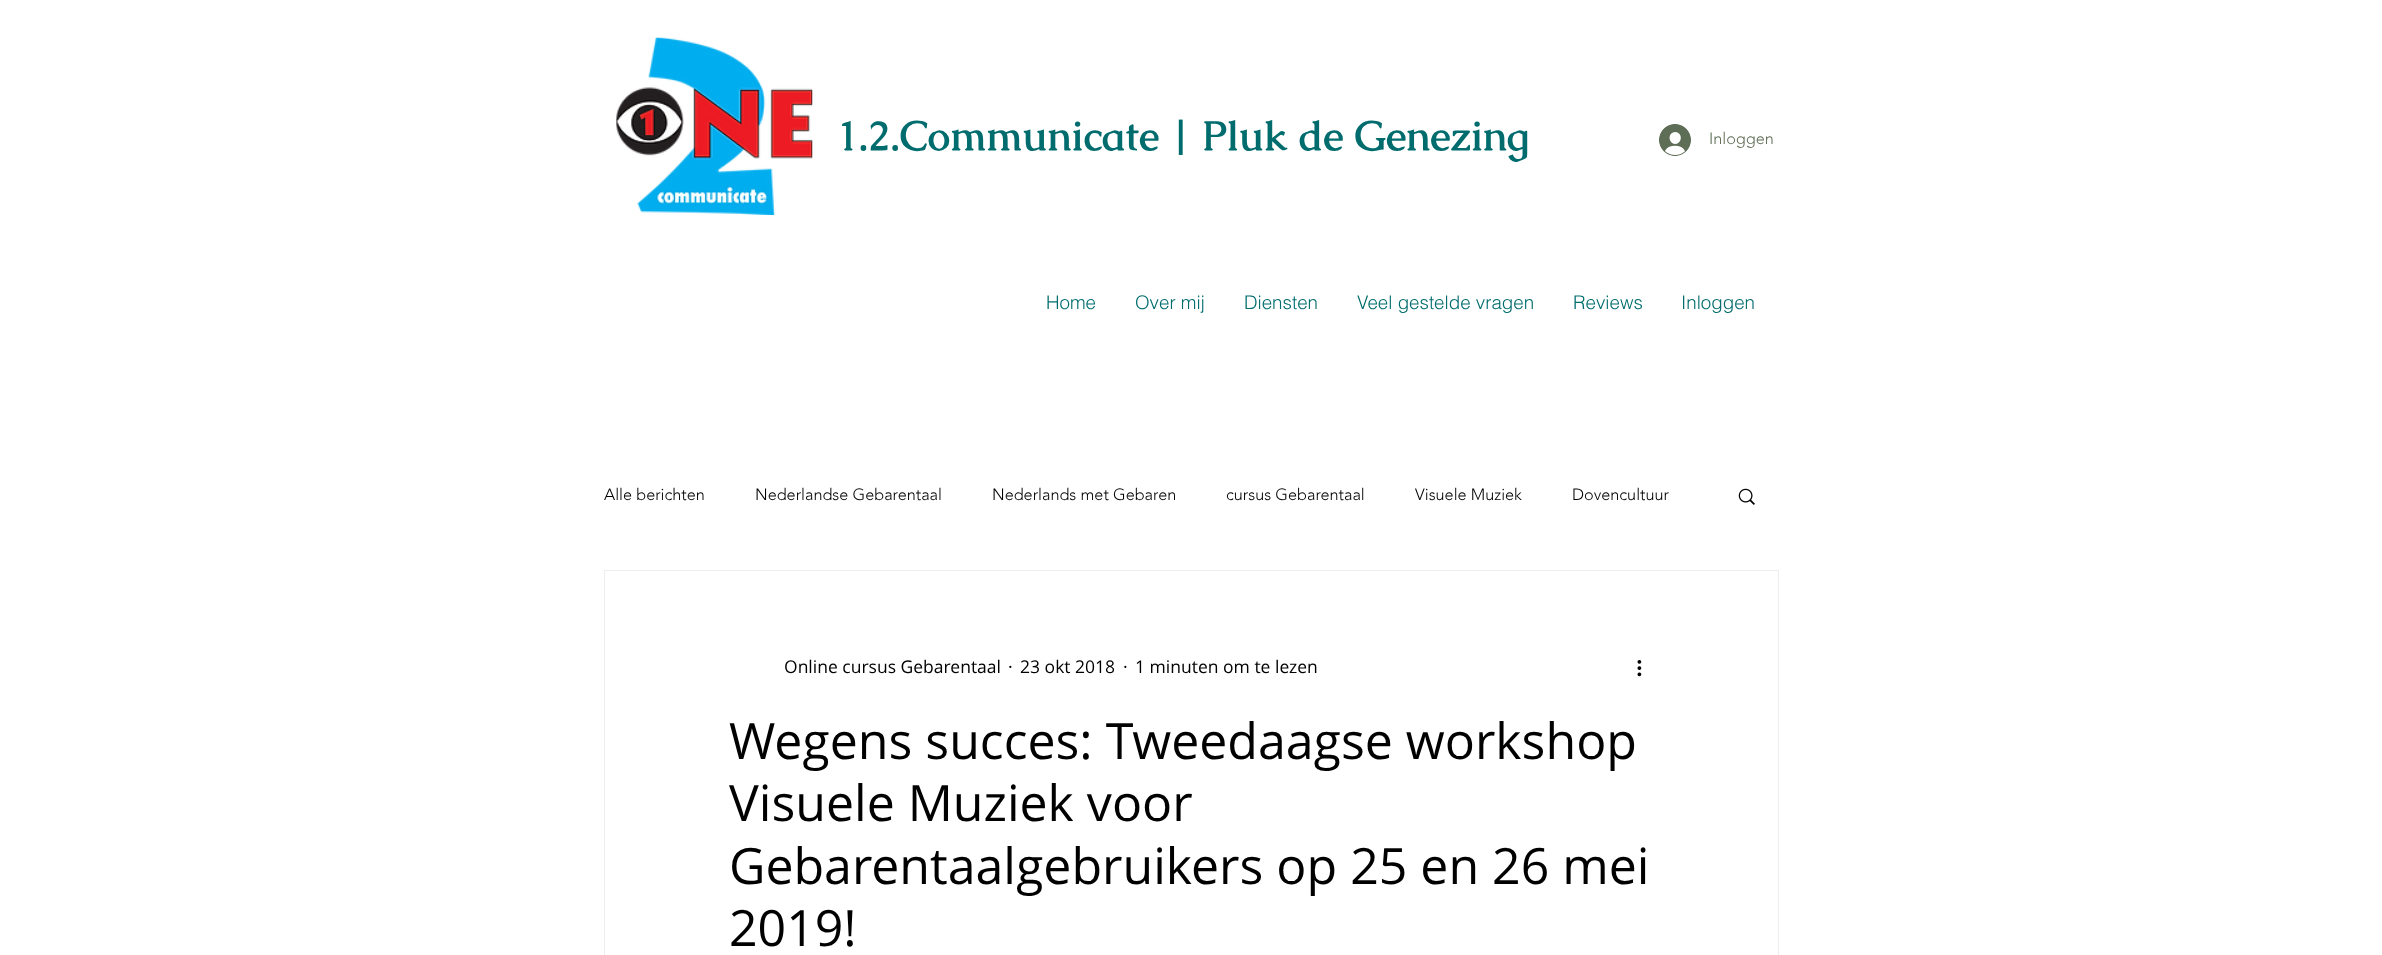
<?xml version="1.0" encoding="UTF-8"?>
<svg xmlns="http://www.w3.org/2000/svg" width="2382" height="955">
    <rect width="100%" height="100%" fill="#FFFFFF"/>
    <image x="616" y="37" width="197" height="178" href="img_01.png"/>
    <text x="838" y="150" font-family="Caudex" font-size="41.25" font-weight="700" fill="#006C6D">1.2.Communicate | Pluk de Genezing</text>
    <image x="1659" y="124" width="32" height="32" href="img_02.png"/>
    <text x="1709" y="144" font-family="'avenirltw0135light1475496'" font-size="16.25" font-weight="300" fill="#5E6D55">Inloggen</text>
    <text x="1046" y="309" font-family="helvetica" font-size="18.75" font-weight="300" fill="#006C6D">Home</text>
    <text x="1135" y="309" font-family="helvetica" font-size="18.75" font-weight="300" fill="#006C6D">Over mij</text>
    <text x="1244" y="309" font-family="helvetica" font-size="18.75" font-weight="300" fill="#006C6D">Diensten</text>
    <text x="1357" y="309" font-family="helvetica" font-size="18.75" font-weight="300" fill="#006C6D">Veel gestelde vragen</text>
    <text x="1573" y="309" font-family="helvetica" font-size="18.75" font-weight="300" fill="#006C6D">Reviews</text>
    <text x="1681" y="309" font-family="helvetica" font-size="18.75" font-weight="300" fill="#006C6D">Inloggen</text>
    <text x="604" y="500" font-family="'avenirltw0135light1475496'" font-size="16.25" font-weight="300" fill="#000000">Alle berichten</text>
    <text x="755" y="500" font-family="'avenirltw0135light1475496'" font-size="16.25" font-weight="300" fill="#000000">Nederlandse Gebarentaal</text>
    <text x="992" y="500" font-family="'avenirltw0135light1475496'" font-size="16.25" font-weight="300" fill="#000000">Nederlands met Gebaren</text>
    <text x="1226" y="500" font-family="'avenirltw0135light1475496'" font-size="16.25" font-weight="300" fill="#000000">cursus Gebarentaal</text>
    <text x="1415" y="500" font-family="'avenirltw0135light1475496'" font-size="16.25" font-weight="300" fill="#000000">Visuele Muziek</text>
    <text x="1572" y="500" font-family="'avenirltw0135light1475496'" font-size="16.25" font-weight="300" fill="#000000">Dovencultuur</text>
    <image x="1738" y="488" width="17" height="17" href="img_03.png"/>
    <rect x="604.5" y="570.5" width="1174" height="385" fill="none" stroke="#EEECEC"/>
    <text x="784" y="673" font-family="Open Sans" font-size="17.5" fill="#000000">Online cursus Gebarentaal</text>
    <text x="1008" y="673" font-family="Open Sans" font-size="17.5" fill="#000000">·</text>
    <text x="1020" y="673" font-family="Open Sans" font-size="17.5" fill="#000000">23 okt 2018</text>
    <text x="1123" y="673" font-family="Open Sans" font-size="17.5" fill="#000000">·</text>
    <text x="1135" y="673" font-family="Open Sans" font-size="17.5" fill="#000000">1 minuten om te lezen</text>
    <image x="1637" y="660" width="5" height="17" href="img_04.png"/>
    <text font-family="Open Sans" font-size="50" fill="#000000">
        <tspan x="729" y="759">Wegens succes: Tweedaagse workshop</tspan>
        <tspan x="729" y="821">Visuele Muziek voor</tspan>
        <tspan x="729" y="884">Gebarentaalgebruikers op 25 en 26 mei</tspan>
        <tspan x="729" y="946">2019!</tspan>
    </text>
</svg>
